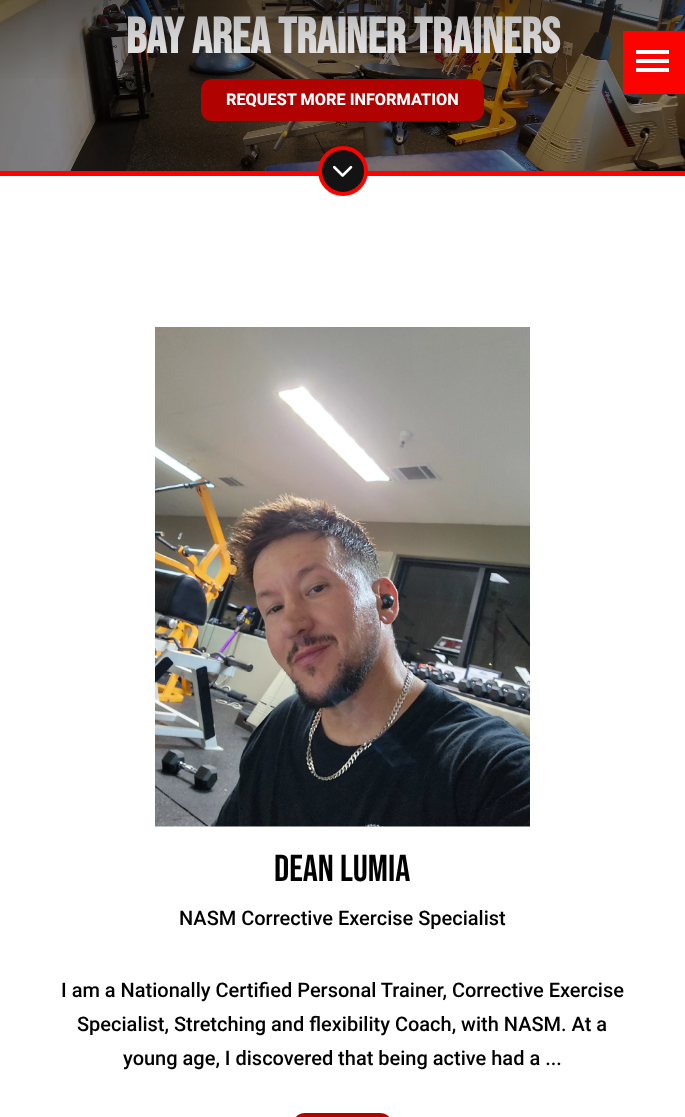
<?xml version="1.0" encoding="UTF-8"?>
<svg xmlns="http://www.w3.org/2000/svg" width="685" height="1117">
    <defs>
        <linearGradient id="g1" gradientUnits="userSpaceOnUse" x1="343" y1="-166" x2="343" y2="84"><stop offset="0" stop-color="#131313"/><stop offset="1" stop-color="#131313" stop-opacity="0"/></linearGradient>
    </defs>
    <rect width="100%" height="100%" fill="#FFFFFF"/>
    <rect x="0" y="0" width="685" height="171" fill="#000000"/>
    <image x="0" y="0" width="685" height="171" href="img_01.png"/>
    <text x="126" y="53" font-family="Bebas Neue" font-size="50" font-weight="700" fill="#FFFFFF">Bay Area Trainer Trainers</text>
    <rect x="0" y="0" width="685" height="79" fill="url(#g1)"/>
    <rect x="623" y="31" width="62" height="63" fill="#FB0301"/>
    <rect x="636" y="50" width="33" height="4" fill="#FFFFFF"/>
    <rect x="636" y="59" width="33" height="4" fill="#FFFFFF"/>
    <rect x="636" y="68" width="33" height="4" fill="#FFFFFF"/>
    <rect x="201" y="79" width="283" height="42" rx="10" fill="#B00201"/>
    <text x="226" y="105" font-family="Roboto" font-size="16.25" font-weight="800" fill="#FFFFFF">REQUEST MORE INFORMATION</text>
    <rect x="0" y="171" width="685" height="5" fill="#FB0301"/>
    <circle cx="343" cy="171" r="23" fill="#131313" stroke="#FB0301" stroke-width="4"/>
    <image x="333" y="165" width="20" height="12" href="img_02.png"/>
    <image x="155" y="327" width="375" height="500" href="img_03.png"/>
    <text x="274" y="881" font-family="Bebas Neue" font-size="37.5" fill="#000000">Dean Lumia</text>
    <text x="179" y="925" font-family="Roboto" font-size="20" font-weight="500" fill="#000000">NASM Corrective Exercise Specialist</text>
    <text x="61" y="997" font-family="Roboto" font-size="20" font-weight="500" fill="#000000">I am a Nationally Certified Personal Trainer, Corrective Exercise</text>
    <text x="77" y="1031" font-family="Roboto" font-size="20" font-weight="500" fill="#000000">Specialist, Stretching and flexibility Coach, with NASM. At a</text>
    <text x="123" y="1065" font-family="Roboto" font-size="20" font-weight="500" fill="#000000">young age, I discovered that being active had a ...</text>
    <rect x="295" y="1113" width="95" height="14" rx="10" fill="#B00201"/>
</svg>
